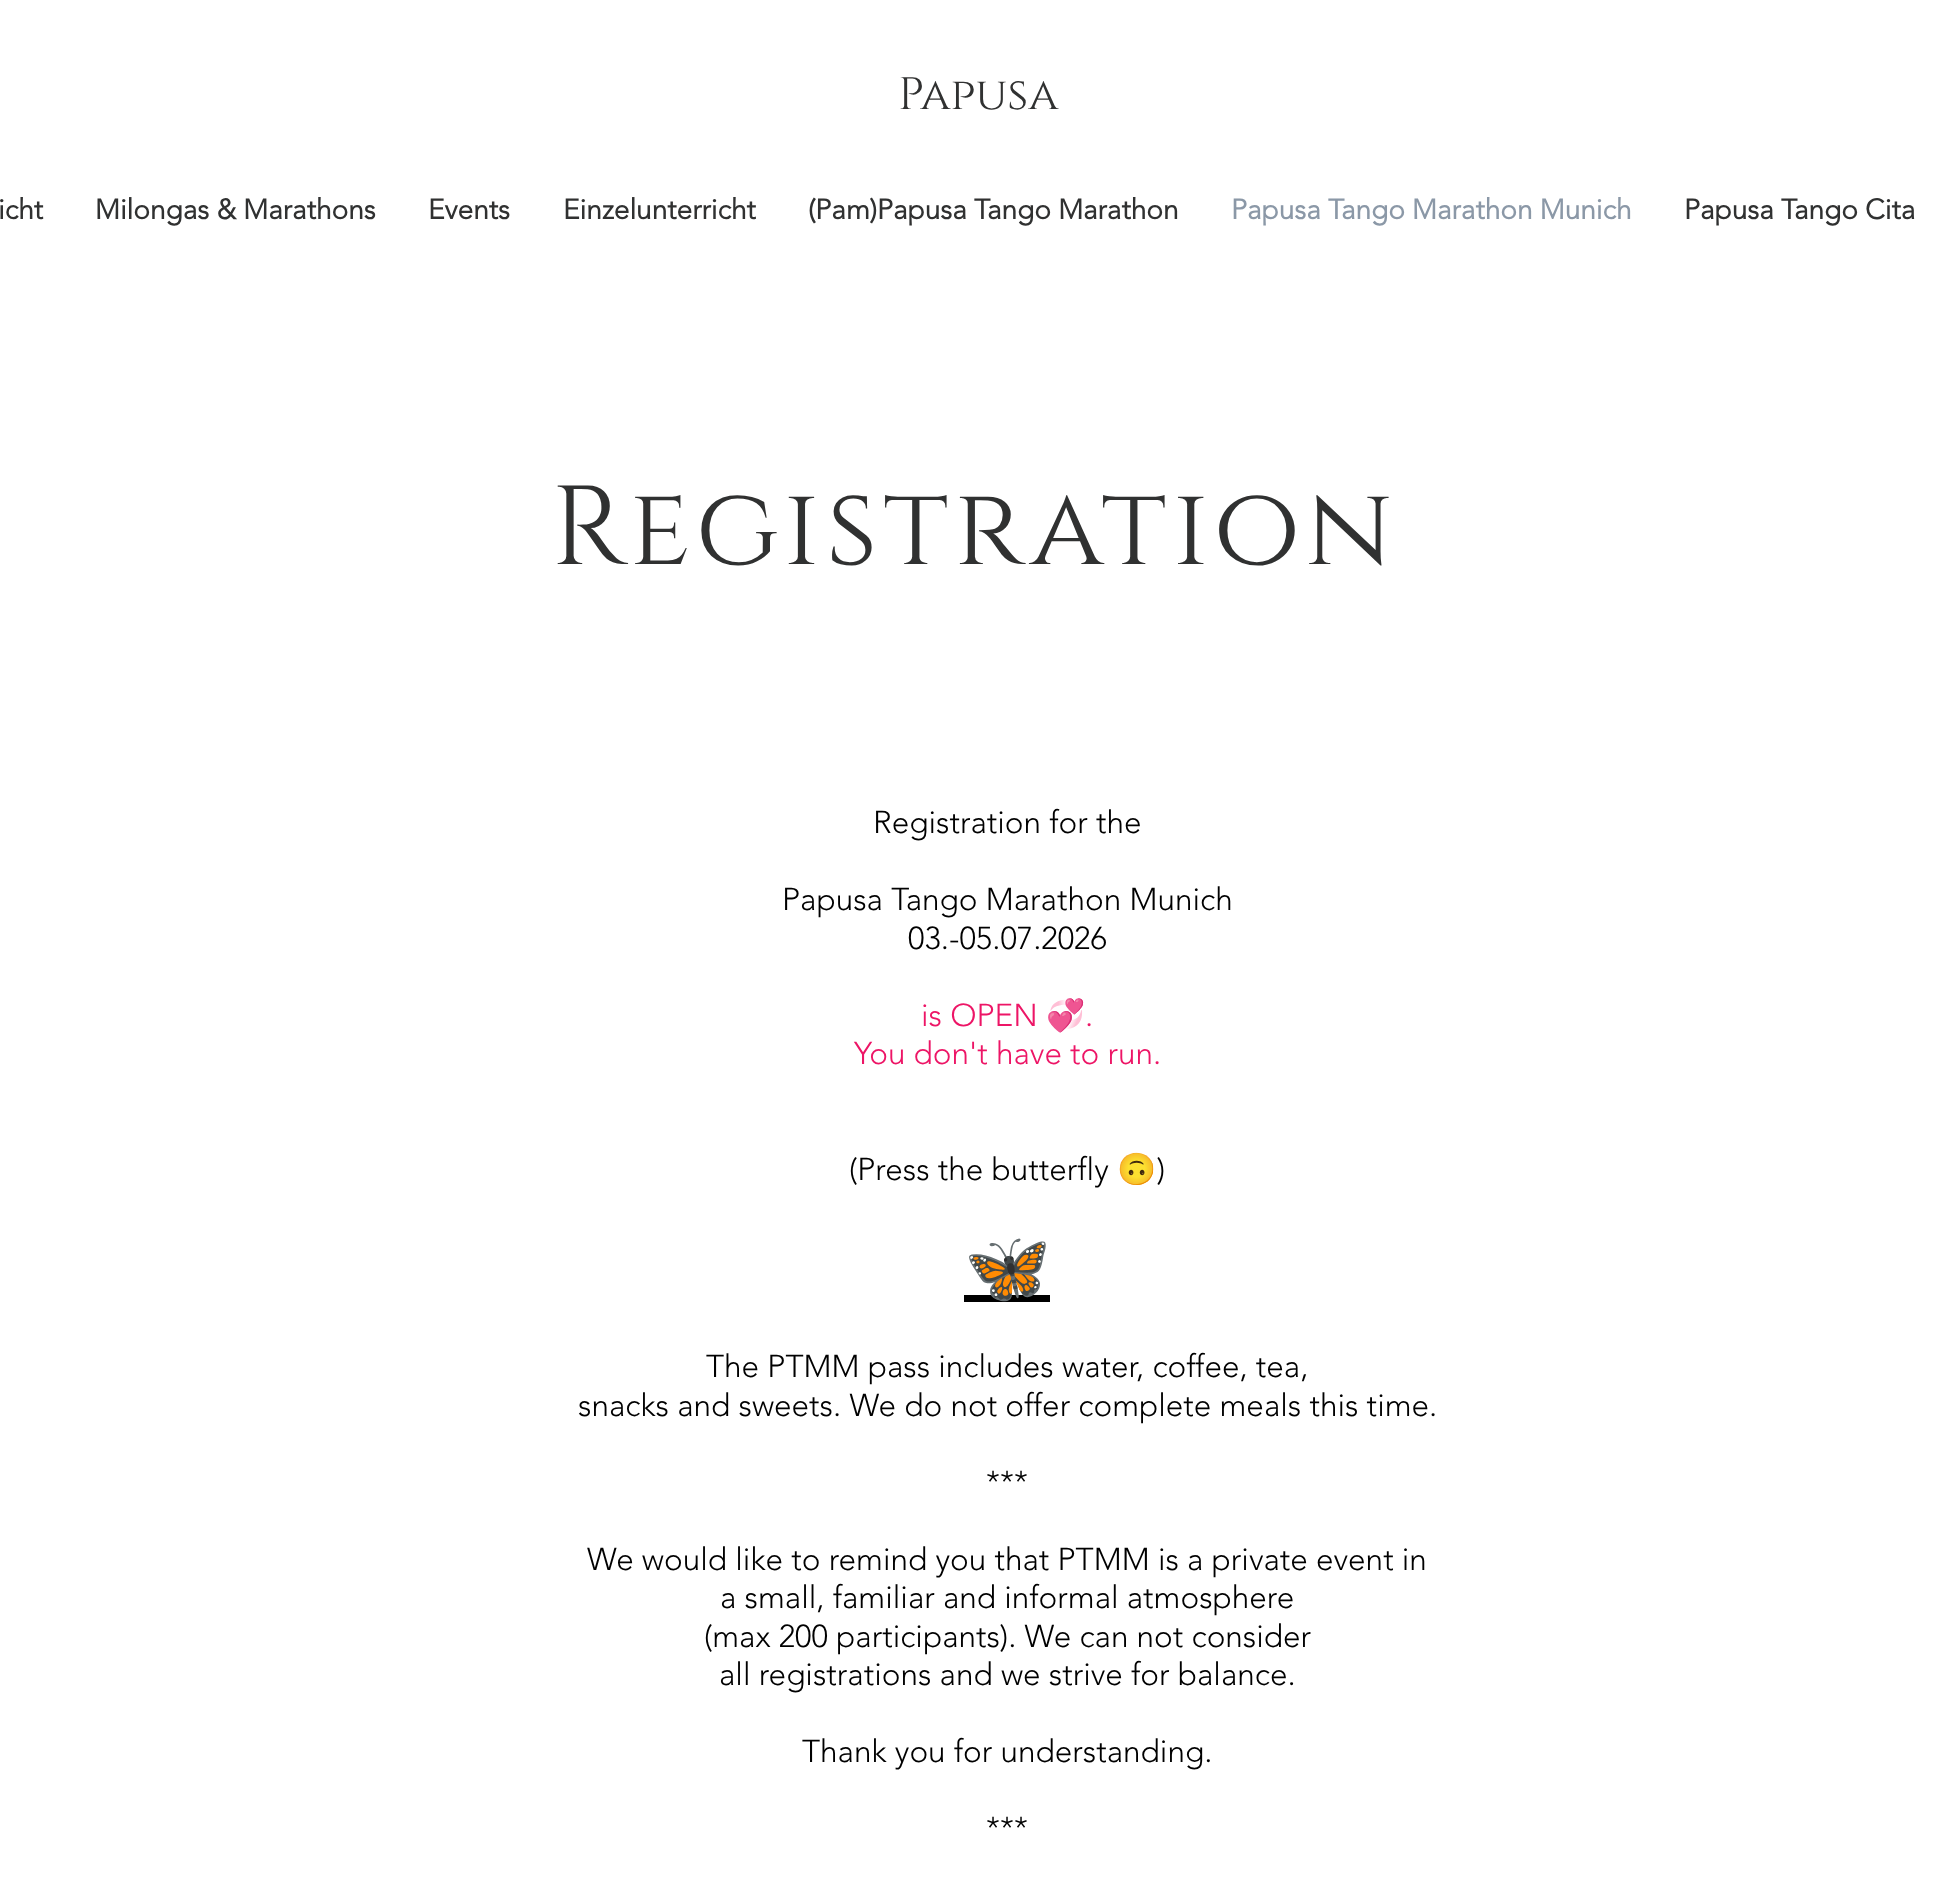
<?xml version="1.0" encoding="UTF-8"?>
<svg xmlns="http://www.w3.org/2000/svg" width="1955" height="1892">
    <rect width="100%" height="100%" fill="#FFFFFF"/>
    <text x="898" y="109" font-family="Cinzel" font-size="45.5" fill="#303131">Papusa</text>
    <text x="-2" y="219" font-family="'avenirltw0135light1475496'" font-size="28" font-weight="700" fill="#303131">icht</text>
    <text x="95" y="219" font-family="'avenirltw0135light1475496'" font-size="28" font-weight="700" fill="#303131">Milongas &amp; Marathons</text>
    <text x="428" y="219" font-family="'avenirltw0135light1475496'" font-size="28" font-weight="700" fill="#303131">Events</text>
    <text x="563" y="219" font-family="'avenirltw0135light1475496'" font-size="28" font-weight="700" fill="#303131">Einzelunterricht</text>
    <text x="808" y="219" font-family="'avenirltw0135light1475496'" font-size="28" font-weight="700" fill="#303131">(Pam)Papusa Tango Marathon</text>
    <text x="1231" y="219" font-family="'avenirltw0135light1475496'" font-size="28" font-weight="700" fill="#8B98A7">Papusa Tango Marathon Munich</text>
    <text x="1684" y="219" font-family="'avenirltw0135light1475496'" font-size="28" font-weight="700" fill="#303131">Papusa Tango Cita</text>
    <text x="551" y="564" font-family="Cinzel" font-size="112" letter-spacing="5.6" fill="#303131">Registration</text>
    <text x="873" y="833" font-family="'avenirltw0135light1475496'" font-size="31.5" font-weight="300" fill="#000000">Registration for the</text>
    <text x="782" y="910" font-family="'avenirltw0135light1475496'" font-size="31.5" font-weight="300" fill="#000000">Papusa Tango Marathon Munich</text>
    <text x="908" y="949" font-family="'avenirltw0135light1475496'" font-size="31.5" font-weight="300" fill="#000000">03.-05.07.2026</text>
    <text x="921" y="1026" font-family="'avenirltw0135light1475496'" font-size="31.5" font-weight="300" fill="#ED1566">is OPEN</text>
    <text x="1046" y="1026" font-family="Noto Color Emoji" font-size="31.5" fill="#ED1566">💞</text>
    <text x="1085" y="1026" font-family="'avenirltw0135light1475496'" font-size="31.5" font-weight="300" fill="#ED1566">.</text>
    <text x="854" y="1064" font-family="'avenirltw0135light1475496'" font-size="31.5" font-weight="300" fill="#ED1566">You don't have to run.</text>
    <text x="849" y="1180" font-family="'avenirltw0135light1475496'" font-size="31.5" font-weight="300" fill="#000000">(Press the butterfly</text>
    <text x="1117" y="1180" font-family="Noto Color Emoji" font-size="31.5" fill="#000000">🙃</text>
    <text x="1157" y="1180" font-family="'avenirltw0135light1475496'" font-size="31.5" font-weight="300" fill="#000000">)</text>
    <rect x="964" y="1295" width="86" height="7" fill="#000000"/>
    <text x="964" y="1292" font-family="Noto Color Emoji" font-size="70" fill="#000000">🦋</text>
    <text x="706" y="1377" font-family="'avenirltw0135light1475496'" font-size="31.5" font-weight="300" fill="#000000">The PTMM pass includes water, coffee, tea,</text>
    <text x="578" y="1416" font-family="'avenirltw0135light1475496'" font-size="31.5" font-weight="300" fill="#000000">snacks and sweets. We do not offer complete meals this time.</text>
    <text x="986" y="1493" font-family="'avenirltw0135light1475496'" font-size="31.5" font-weight="300" fill="#000000">***</text>
    <text x="587" y="1570" font-family="'avenirltw0135light1475496'" font-size="31.5" font-weight="300" fill="#000000">We would like to remind you that PTMM is a private event in</text>
    <text x="720" y="1608" font-family="'avenirltw0135light1475496'" font-size="31.5" font-weight="300" fill="#000000">a small, familiar and informal atmosphere</text>
    <text x="704" y="1647" font-family="'avenirltw0135light1475496'" font-size="31.5" font-weight="300" fill="#000000">(max 200 participants). We can not consider</text>
    <text x="719" y="1685" font-family="'avenirltw0135light1475496'" font-size="31.5" font-weight="300" fill="#000000">all registrations and we strive for balance.</text>
    <text x="802" y="1762" font-family="'avenirltw0135light1475496'" font-size="31.5" font-weight="300" fill="#000000">Thank you for understanding.</text>
    <text x="986" y="1839" font-family="'avenirltw0135light1475496'" font-size="31.5" font-weight="300" fill="#000000">***</text>
</svg>
